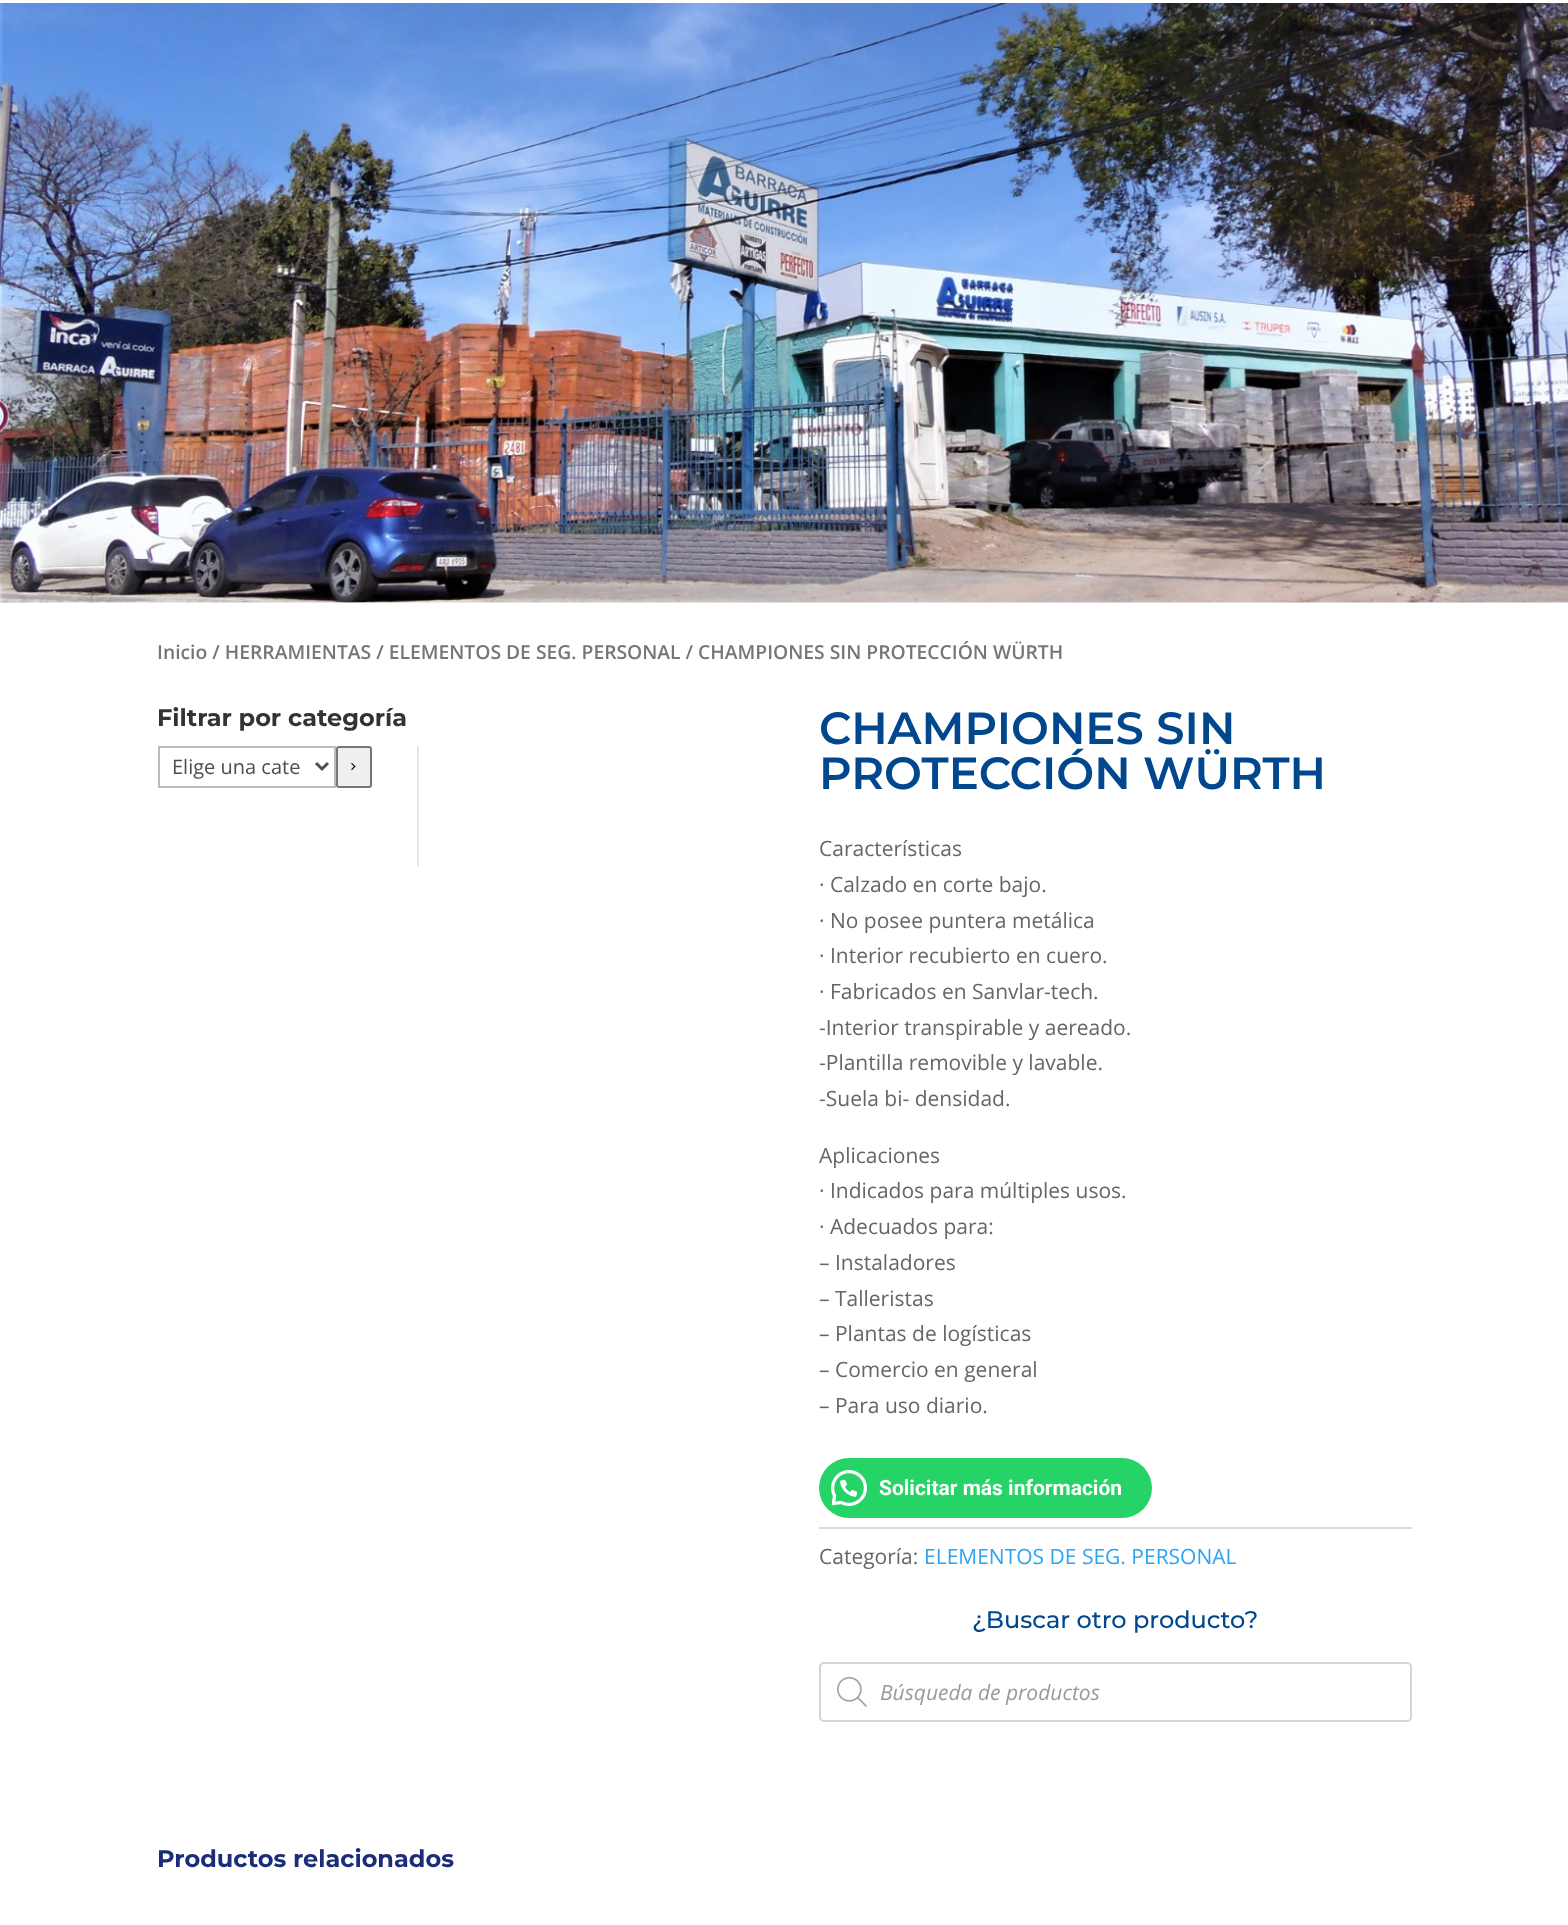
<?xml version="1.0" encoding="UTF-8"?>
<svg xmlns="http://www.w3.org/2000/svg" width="1568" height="1925">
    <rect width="100%" height="100%" fill="#FFFFFF"/>
    <image x="0" y="3" width="1568" height="600" href="img_01.png"/>
    <text x="157" y="659" font-family="Open Sans" font-size="19.3" font-weight="600" fill="#767676">Inicio / HERRAMIENTAS / ELEMENTOS DE SEG. PERSONAL / CHAMPIONES SIN PROTECCIÓN WÜRTH</text>
    <text x="157" y="726" font-family="Montserrat" font-size="24" font-weight="700" fill="#333333">Filtrar por categoría</text>
    <rect x="417" y="746" width="2" height="120" fill="#E6E6E6"/>
    <rect x="159" y="747" width="176" height="40" fill="none" stroke="#BBBBBB" stroke-width="2"/>
    <path d="M 316 763 L 322 769 L 328 763" fill="none" stroke="#4E4E4E" stroke-width="3"/>
    <text x="172" y="774" font-family="Open Sans" font-size="20" fill="#4E4E4E">Elige una cate</text>
    <rect x="337" y="747" width="34" height="40" rx="2" fill="#EFEFEF" stroke="#767676" stroke-width="2"/>
    <image x="351" y="762" width="5" height="9" href="img_02.png"/>
    <text font-family="Montserrat" font-size="45" font-weight="600" fill="#01478D">
        <tspan x="819" y="744">CHAMPIONES SIN</tspan>
        <tspan x="819" y="789">PROTECCIÓN WÜRTH</tspan>
    </text>
    <text font-family="Open Sans" font-size="21" fill="#666666">
        <tspan x="819" y="856">Características</tspan>
        <tspan x="819" y="892">· Calzado en corte bajo.</tspan>
        <tspan x="819" y="928">· No posee puntera metálica</tspan>
        <tspan x="819" y="963">· Interior recubierto en cuero.</tspan>
        <tspan x="819" y="999">· Fabricados en Sanvlar-tech.</tspan>
        <tspan x="819" y="1035">-Interior transpirable y aereado.</tspan>
        <tspan x="819" y="1070">-Plantilla removible y lavable.</tspan>
        <tspan x="819" y="1106">-Suela bi- densidad.</tspan>
    </text>
    <text font-family="Open Sans" font-size="21" fill="#666666">
        <tspan x="819" y="1163">Aplicaciones</tspan>
        <tspan x="819" y="1198">· Indicados para múltiples usos.</tspan>
        <tspan x="819" y="1234">· Adecuados para:</tspan>
        <tspan x="819" y="1270">– Instaladores</tspan>
        <tspan x="819" y="1306">– Talleristas</tspan>
        <tspan x="819" y="1341">– Plantas de logísticas</tspan>
        <tspan x="819" y="1377">– Comercio en general</tspan>
        <tspan x="819" y="1413">– Para uso diario.</tspan>
    </text>
    <rect x="819" y="1458" width="333" height="60" rx="30" fill="#25D366"/>
    <image x="831" y="1470" width="36" height="36" href="img_03.png"/>
    <text x="879" y="1495" font-family="Roboto" font-size="21" font-weight="700" fill="#FFFFFF">Solicitar más información</text>
    <rect x="819" y="1527" width="593" height="2" fill="#DADADA"/>
    <text x="819" y="1564" font-family="Open Sans" font-size="21" fill="#666666">Categoría:</text>
    <text x="924" y="1564" font-family="Open Sans" font-size="21" fill="#2EA3F2">ELEMENTOS DE SEG. PERSONAL</text>
    <text x="972" y="1628" font-family="Montserrat" font-size="24" font-weight="500" fill="#01478D">¿Buscar otro producto?</text>
    <rect x="820" y="1663" width="591" height="58" rx="4" fill="none" stroke="#D4D4D4" stroke-width="2"/>
    <image x="837" y="1677" width="30" height="30" href="img_04.png"/>
    <text x="880" y="1700" font-family="Open Sans" font-size="21" font-style="italic" fill="#999999">Búsqueda de productos</text>
    <text x="157" y="1867" font-family="Montserrat" font-size="24" font-weight="700" fill="#1A2D7A">Productos relacionados</text>
</svg>
